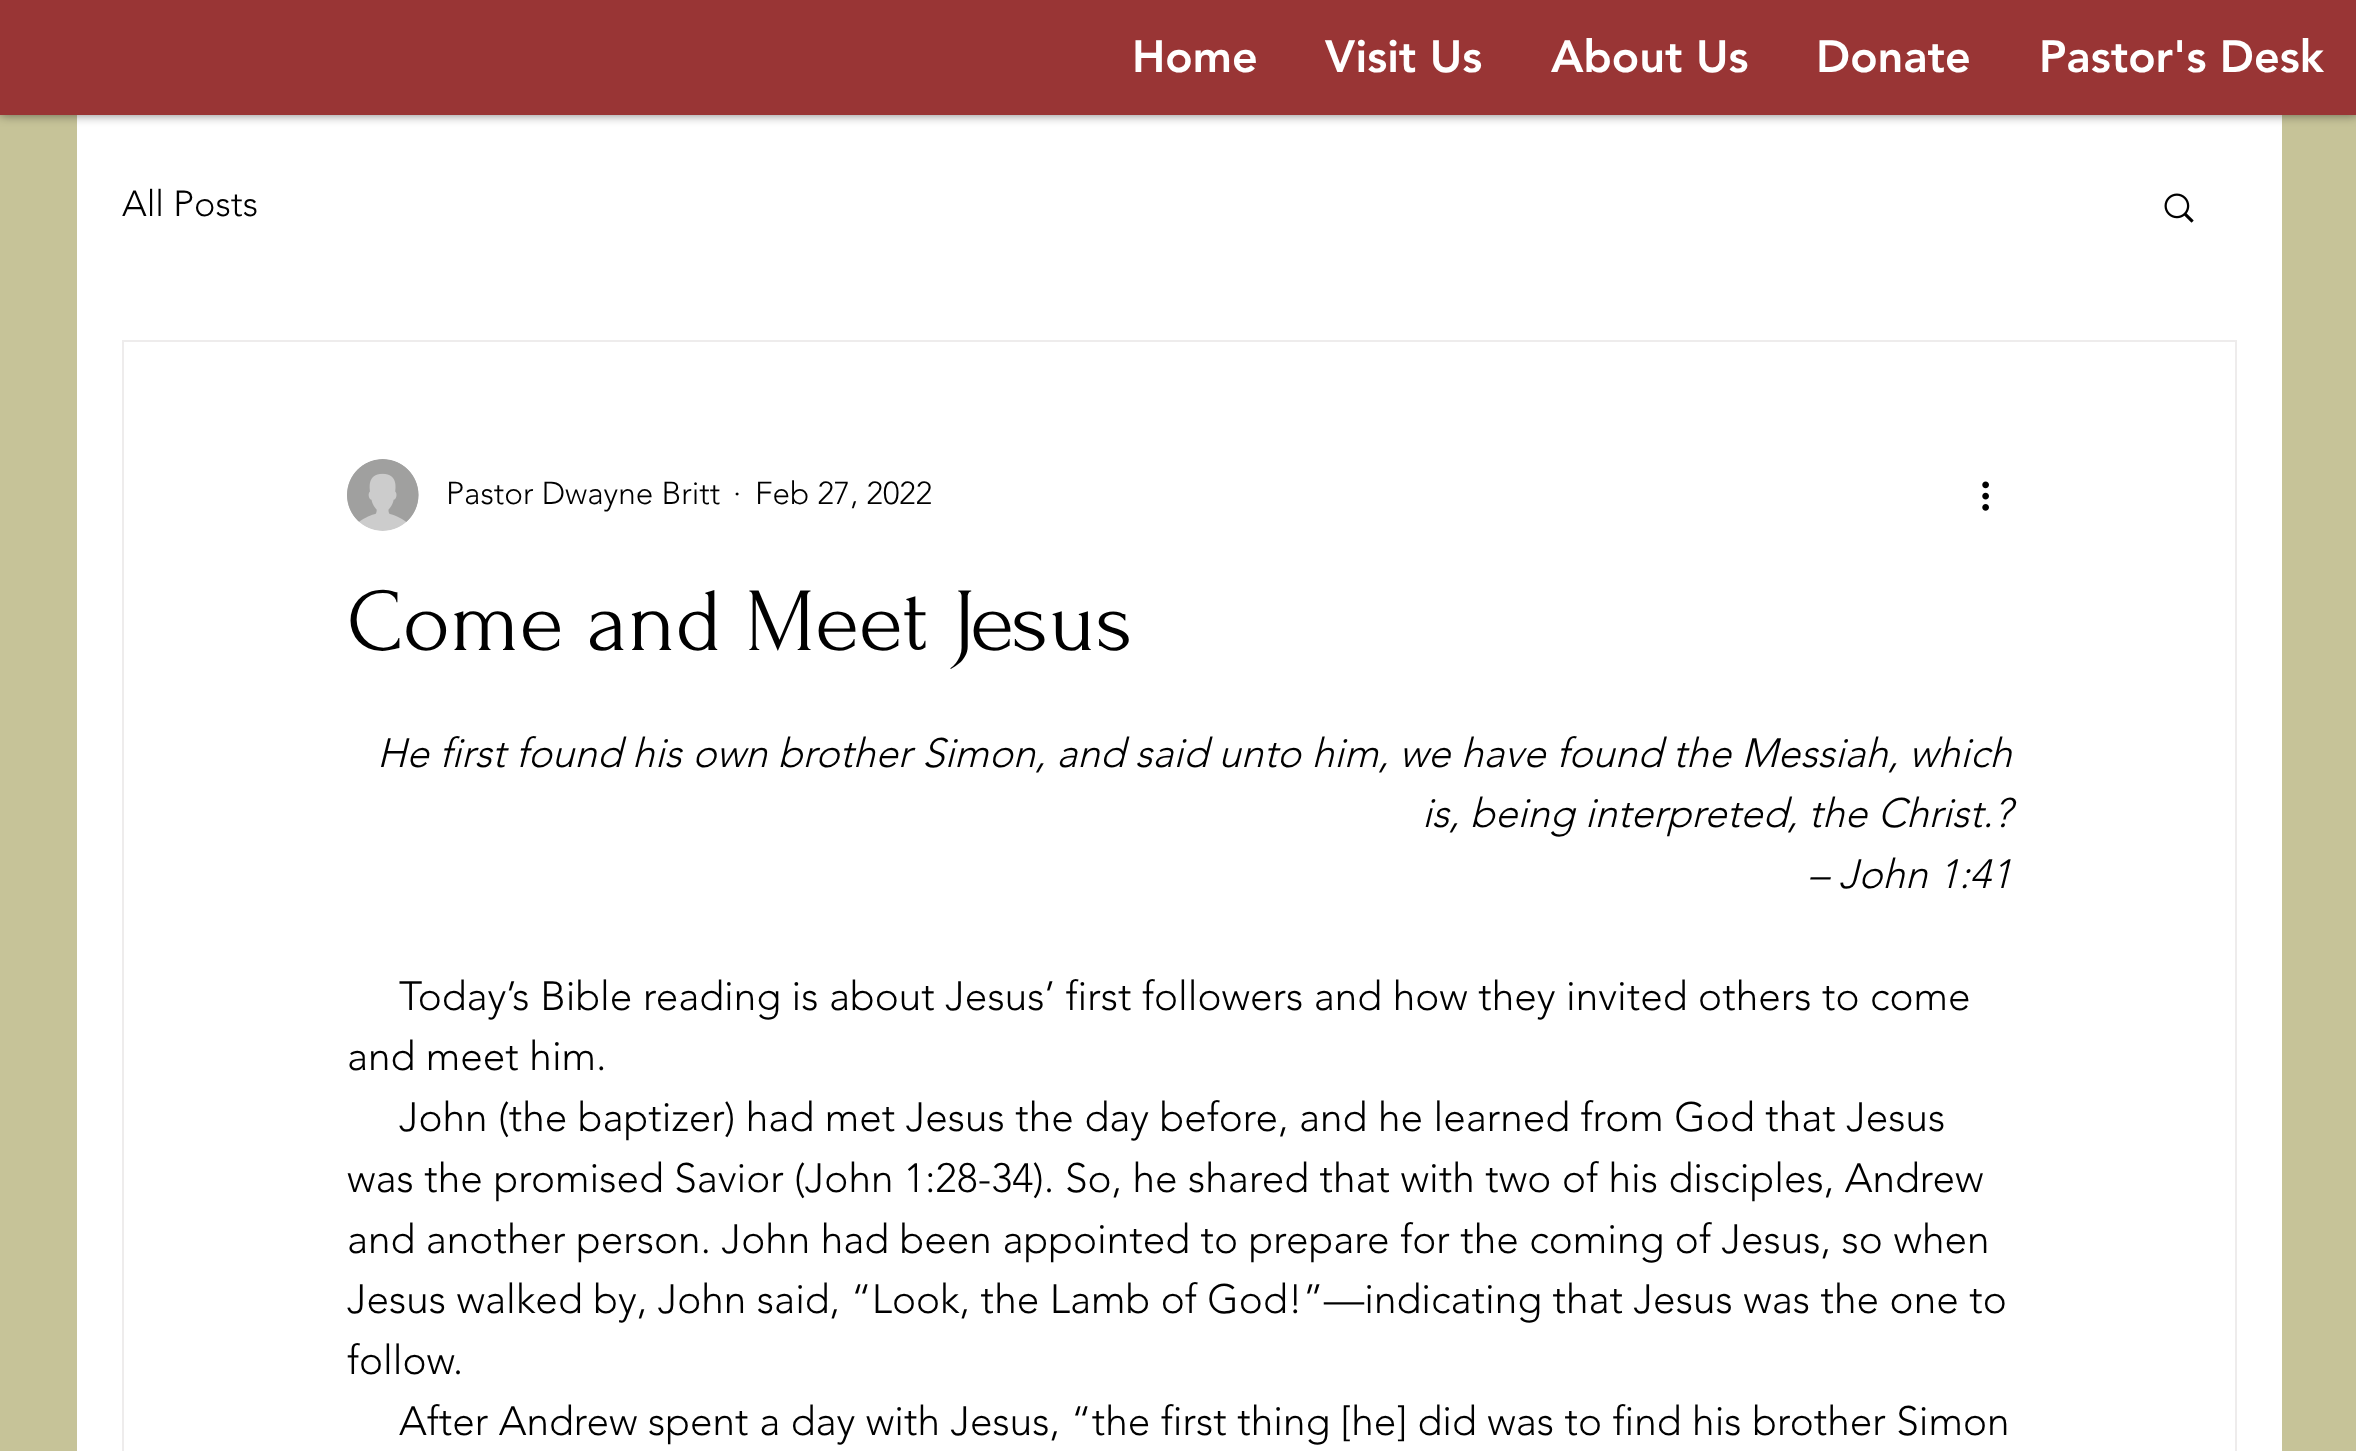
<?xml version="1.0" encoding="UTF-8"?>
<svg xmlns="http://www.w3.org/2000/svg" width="2356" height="1451">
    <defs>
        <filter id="blur1" x="-50%" y="-200%" width="200%" height="500%"><feGaussianBlur stdDeviation="5.5"/></filter>
    </defs>
    <rect width="100%" height="100%" fill="#C6C398"/>
    <rect x="77" y="115" width="2205" height="1336" fill="#FFFFFF"/>
    <rect x="0" y="0" width="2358" height="115" fill="#000000" fill-opacity="0.5" filter="url(#blur1)"/>
    <rect x="0" y="0" width="2356" height="115" fill="#993535"/>
    <text x="1132" y="72" font-family="'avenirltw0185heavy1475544'" font-size="45" font-weight="900" fill="#FFFFFF">Home</text>
    <text x="1325" y="72" font-family="'avenirltw0185heavy1475544'" font-size="45" font-weight="900" fill="#FFFFFF">Visit Us</text>
    <text x="1551" y="72" font-family="'avenirltw0185heavy1475544'" font-size="45" font-weight="900" fill="#FFFFFF">About Us</text>
    <text x="1816" y="72" font-family="'avenirltw0185heavy1475544'" font-size="45" font-weight="900" fill="#FFFFFF">Donate</text>
    <text x="2039" y="72" font-family="'avenirltw0185heavy1475544'" font-size="45" font-weight="900" fill="#FFFFFF">Pastor's Desk</text>
    <text x="122" y="216" font-family="'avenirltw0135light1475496'" font-size="36" font-weight="300" fill="#000000">All Posts</text>
    <image x="2164" y="193" width="30" height="30" href="img_01.png"/>
    <rect x="123" y="341" width="2113" height="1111" fill="none" stroke="#EEECEC" stroke-width="2"/>
    <image x="347" y="459" width="72" height="72" href="img_02.png"/>
    <text x="446" y="504" font-family="'avenirltw0135light1475496'" font-size="31.5" font-weight="300" fill="#000000">Pastor Dwayne Britt</text>
    <text x="733" y="504" font-family="'avenirltw0135light1475496'" font-size="31.5" font-weight="300" fill="#000000">·</text>
    <text x="755" y="504" font-family="'avenirltw0135light1475496'" font-size="31.5" font-weight="300" fill="#000000">Feb 27, 2022</text>
    <image x="1982" y="481" width="7" height="30" href="img_03.png"/>
    <text x="347" y="650" font-family="Forum" font-size="90" fill="#000000">Come and Meet Jesus</text>
    <text x="377" y="767" font-family="'avenirltw0135light1475496'" font-size="40.5" font-weight="300" font-style="italic" fill="#000000">He first found his own brother Simon, and said unto him, we have found the Messiah, which</text>
    <text x="1422" y="827" font-family="'avenirltw0135light1475496'" font-size="40.5" font-weight="300" font-style="italic" fill="#000000">is, being interpreted, the Christ.?</text>
    <text x="1808" y="888" font-family="'avenirltw0135light1475496'" font-size="40.5" font-weight="300" font-style="italic" fill="#000000">– John 1:41</text>
    <text x="399" y="1010" font-family="'avenirltw0135light1475496'" font-size="40.5" font-weight="300" fill="#000000">Today’s Bible reading is about Jesus’ first followers and how they invited others to come</text>
    <text x="347" y="1070" font-family="'avenirltw0135light1475496'" font-size="40.5" font-weight="300" fill="#000000">and meet him.</text>
    <text x="399" y="1131" font-family="'avenirltw0135light1475496'" font-size="40.5" font-weight="300" fill="#000000">John (the baptizer) had met Jesus the day before, and he learned from God that Jesus</text>
    <text font-family="'avenirltw0135light1475496'" font-size="40.5" font-weight="300" fill="#000000">
        <tspan x="347" y="1192">was the promised Savior (John 1:28-34). So, he shared that with two of his disciples, Andrew</tspan>
        <tspan x="347" y="1253">and another person. John had been appointed to prepare for the coming of Jesus, so when</tspan>
        <tspan x="347" y="1313">Jesus walked by, John said, “Look, the Lamb of God!”—indicating that Jesus was the one to</tspan>
        <tspan x="347" y="1374">follow.</tspan>
    </text>
    <text x="399" y="1435" font-family="'avenirltw0135light1475496'" font-size="40.5" font-weight="300" fill="#000000">After Andrew spent a day with Jesus, “the first thing [he] did was to find his brother Simon</text>
</svg>
